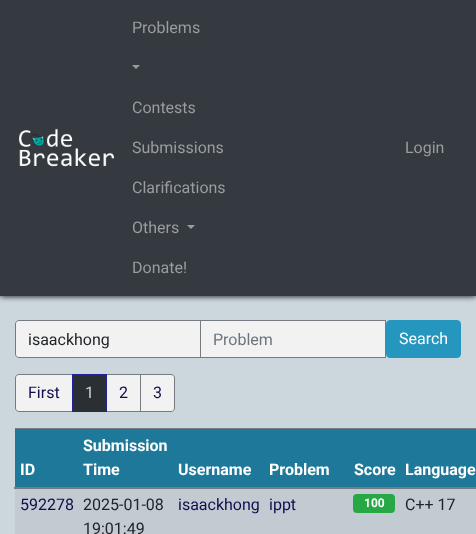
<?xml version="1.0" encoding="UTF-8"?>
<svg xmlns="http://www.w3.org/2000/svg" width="476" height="534">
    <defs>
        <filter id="blur1" x="-50%" y="-200%" width="200%" height="500%"><feGaussianBlur stdDeviation="3"/></filter>
    </defs>
    <rect width="100%" height="100%" fill="#CCD6DD"/>
    <rect x="0" y="0" width="476" height="296" fill="#000000" filter="url(#blur1)"/>
    <rect x="0" y="0" width="476" height="296" fill="#343A40"/>
    <image x="19" y="128" width="96" height="39" href="img_01.png"/>
    <text x="132" y="33" font-family="Roboto" font-size="16" fill="#9A9DA0">Problems</text>
    <path d="M 132 65 H 140 L 136 69 Z" fill="#9A9DA0"/>
    <text x="132" y="113" font-family="Roboto" font-size="16" fill="#9A9DA0">Contests</text>
    <text x="132" y="153" font-family="Roboto" font-size="16" fill="#9A9DA0">Submissions</text>
    <text x="132" y="193" font-family="Roboto" font-size="16" fill="#9A9DA0">Clarifications</text>
    <text x="132" y="233" font-family="Roboto" font-size="16" fill="#9A9DA0">Others</text>
    <path d="M 187 225 H 195 L 191 229 Z" fill="#9A9DA0"/>
    <text x="132" y="273" font-family="Roboto" font-size="16" fill="#9A9DA0">Donate!</text>
    <text x="405" y="153" font-family="Roboto" font-size="16" fill="#9A9DA0">Login</text>
    <path d="M 19 320.5 H 200.5 V 357.5 H 19 C 17 357.5 15.5 356 15.5 354 V 324 C 15.5 322 17 320.5 19 320.5 Z" fill="#F2F2F2" stroke="#757B80"/>
    <text x="28" y="345" font-family="Roboto" font-size="16" fill="#212529">isaackhong</text>
    <rect x="200.5" y="320.5" width="185" height="37" fill="#F2F2F2" stroke="#757B80"/>
    <text x="213" y="345" font-family="Roboto" font-size="16" fill="#6C757D">Problem</text>
    <rect x="386.5" y="320.5" width="74" height="37" rx="3.5" fill="#2596BE" stroke="#2596BE"/>
    <text x="399" y="344" font-family="Roboto" font-size="16" fill="#FFFFFF">Search</text>
    <path d="M 19 374.5 H 72.5 V 411.5 H 19 C 17 411.5 15.5 410 15.5 408 V 378 C 15.5 376 17 374.5 19 374.5 Z" fill="#F2F2F2" stroke="#757B80"/>
    <text x="28" y="398" font-family="Roboto" font-size="16" fill="#0F0E4E">First</text>
    <rect x="106.5" y="374.5" width="34" height="37" fill="#F2F2F2" stroke="#757B80"/>
    <rect x="72.5" y="374.5" width="34" height="37" fill="#292F33" stroke="#212094"/>
    <text x="85" y="398" font-family="Roboto" font-size="16" fill="#CCD6DD">1</text>
    <text x="119" y="398" font-family="Roboto" font-size="16" fill="#0F0E4E">2</text>
    <path d="M 140.5 374.5 H 171 C 173 374.5 174.5 376 174.5 378 V 408 C 174.5 410 173 411.5 171 411.5 H 140.5 Z" fill="#F2F2F2" stroke="#757B80"/>
    <text x="153" y="398" font-family="Roboto" font-size="16" fill="#0F0E4E">3</text>
    <rect x="15" y="429" width="461" height="58" fill="#1D7899"/>
    <text x="20" y="475" font-family="Roboto" font-size="16" font-weight="700" fill="#FFFFFF">ID</text>
    <text font-family="Roboto" font-size="16" font-weight="700" fill="#FFFFFF">
        <tspan x="83" y="451">Submission</tspan>
        <tspan x="83" y="475">Time</tspan>
    </text>
    <text x="178" y="475" font-family="Roboto" font-size="16" font-weight="700" fill="#FFFFFF">Username</text>
    <text x="269" y="475" font-family="Roboto" font-size="16" font-weight="700" fill="#FFFFFF">Problem</text>
    <text x="354" y="475" font-family="Roboto" font-size="16" font-weight="700" fill="#FFFFFF">Score</text>
    <rect x="15" y="428" width="461" height="1" fill="#757B80"/>
    <rect x="14" y="487" width="462" height="2" fill="#757B80"/>
    <text x="405" y="475" font-family="Roboto" font-size="16" font-weight="700" fill="#FFFFFF">Language</text>
    <rect x="15" y="489" width="461" height="45" fill="#C2CBD2"/>
    <text x="20" y="510" font-family="Roboto" font-size="16" fill="#0F0E4E">592278</text>
    <text font-family="Roboto" font-size="16" fill="#212529">
        <tspan x="83" y="510">2025-01-08</tspan>
        <tspan x="83" y="534">19:01:49</tspan>
    </text>
    <text x="178" y="510" font-family="Roboto" font-size="16" fill="#0F0E4E">isaackhong</text>
    <text x="269" y="510" font-family="Roboto" font-size="16" fill="#0F0E4E">ippt</text>
    <rect x="353" y="494" width="42" height="19" rx="4" fill="#28A745"/>
    <text x="364" y="507" font-family="Roboto" font-size="12" font-weight="700" fill="#FFFFFF">100</text>
    <text x="405" y="510" font-family="Roboto" font-size="16" fill="#212529">C++ 17</text>
</svg>
